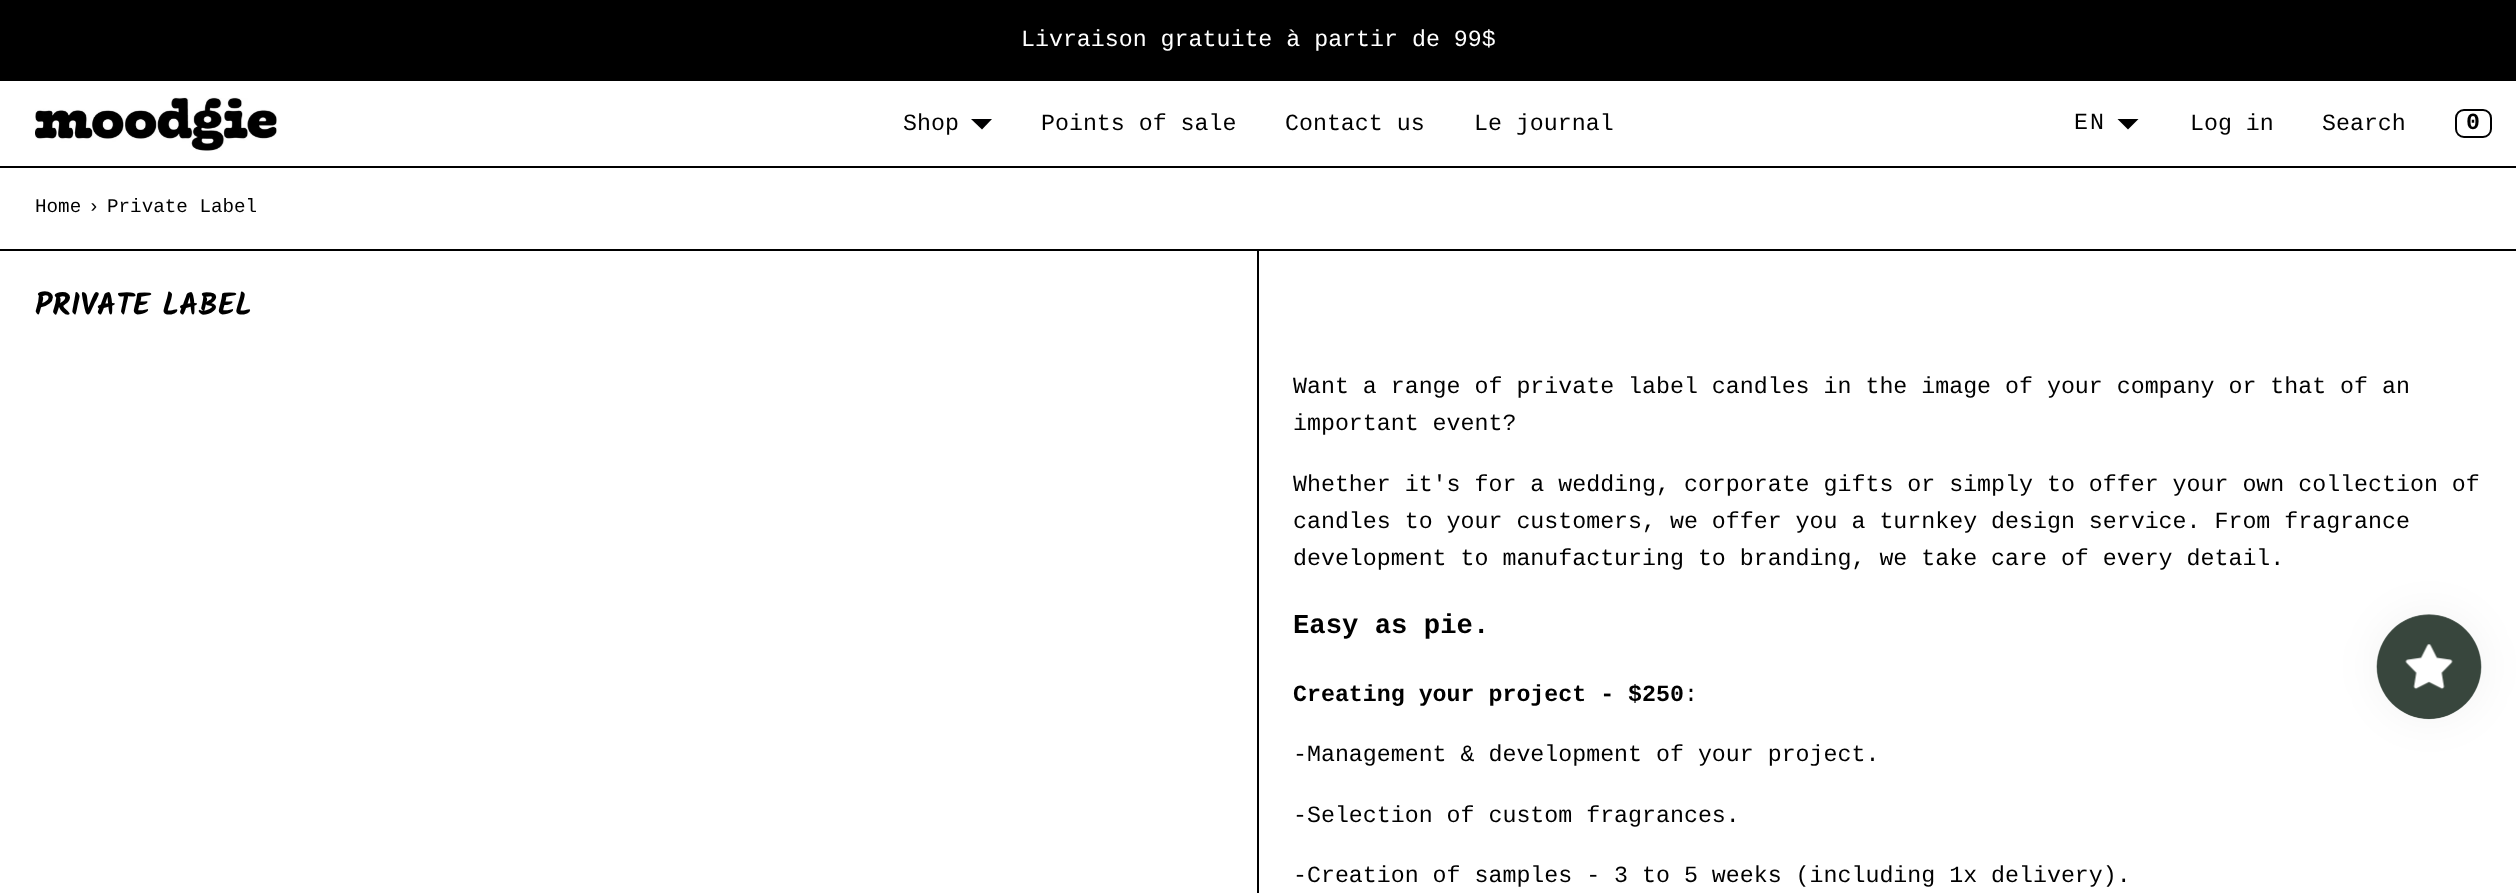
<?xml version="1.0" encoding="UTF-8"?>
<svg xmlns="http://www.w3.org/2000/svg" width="2516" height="893">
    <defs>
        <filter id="blur1" x="-50%" y="-200%" width="200%" height="500%"><feGaussianBlur stdDeviation="22"/></filter>
    </defs>
    <rect width="100%" height="100%" fill="#FFFFFF"/>
    <rect x="0" y="0" width="2516" height="81" fill="#000000"/>
    <text x="1021" y="46" font-family="Liberation Mono" font-size="23.28" fill="#FFFFFF">Livraison gratuite à partir de 99$</text>
    <rect x="0" y="166" width="2516" height="2" fill="#000000"/>
    <image x="35" y="97" width="242" height="54" href="img_01.png"/>
    <text x="903" y="130" font-family="Liberation Mono" font-size="23.28" fill="#000000">Shop</text>
    <path d="M 971 119 H 992 L 982 129.5 Z" fill="#000001"/>
    <text x="1041" y="130" font-family="Liberation Mono" font-size="23.28" fill="#000000">Points of sale</text>
    <text x="1285" y="130" font-family="Liberation Mono" font-size="23.28" fill="#000000">Contact us</text>
    <text x="1474" y="130" font-family="Liberation Mono" font-size="23.28" fill="#000000">Le journal</text>
    <text x="2074" y="129" font-family="Liberation Mono" font-size="23.28" letter-spacing="2" fill="#000000">EN</text>
    <path d="M 2117.5 119 H 2138.5 L 2128 129.5 Z" fill="#000000"/>
    <text x="2190" y="130" font-family="Liberation Mono" font-size="23.28" fill="#000000">Log in</text>
    <text x="2322" y="130" font-family="Liberation Mono" font-size="23.28" fill="#000000">Search</text>
    <rect x="2456" y="110" width="35" height="27" rx="8" fill="none" stroke="#000001" stroke-width="2"/>
    <text x="2466" y="129" font-family="Liberation Mono" font-size="23.28" font-weight="700" letter-spacing="2" fill="#000000">0</text>
    <rect x="1257" y="250" width="2" height="643" fill="#000000"/>
    <rect x="0" y="249" width="2516" height="2" fill="#000000"/>
    <text x="35" y="212" font-family="Liberation Mono" font-size="19.25" fill="#000000">Home</text>
    <text x="88" y="212" font-family="Liberation Mono" font-size="19.25" fill="#000000">›</text>
    <text x="107" y="212" font-family="Liberation Mono" font-size="19.25" fill="#000000">Private Label</text>
    <text x="35" y="315" font-family="Kalam" font-size="31" font-weight="700" fill="#000000">PRIVATE LABEL</text>
    <text font-family="Liberation Mono" font-size="23.28" fill="#000000">
        <tspan x="1293" y="393">Want a range of private label candles in the image of your company or that of an</tspan>
        <tspan x="1293" y="430">important event?</tspan>
    </text>
    <text font-family="Liberation Mono" font-size="23.28" fill="#000000">
        <tspan x="1293" y="491">Whether it's for a wedding, corporate gifts or simply to offer your own collection of</tspan>
        <tspan x="1293" y="528">candles to your customers, we offer you a turnkey design service. From fragrance</tspan>
        <tspan x="1293" y="565">development to manufacturing to branding, we take care of every detail.</tspan>
    </text>
    <text x="1293" y="633" font-family="Liberation Mono" font-size="27.25" font-weight="700" fill="#000000">Easy as pie.</text>
    <text x="1293" y="701" font-family="Liberation Mono" font-size="23.28" font-weight="700" fill="#000000">Creating your project - $250</text>
    <text x="1684" y="701" font-family="Liberation Mono" font-size="23.28" fill="#000000">:</text>
    <text x="1293" y="761" font-family="Liberation Mono" font-size="23.28" fill="#000000">-Management &amp; development of your project.</text>
    <text x="1293" y="822" font-family="Liberation Mono" font-size="23.28" fill="#000000">-Selection of custom fragrances.</text>
    <text x="1293" y="882" font-family="Liberation Mono" font-size="23.28" fill="#000000">-Creation of samples - 3 to 5 weeks (including 1x delivery).</text>
    <rect x="2377" y="614" width="105" height="105" rx="52.5" fill="#000000" fill-opacity="0.05" filter="url(#blur1)"/>
    <image x="2376" y="614" width="106" height="106" href="img_02.png"/>
</svg>
